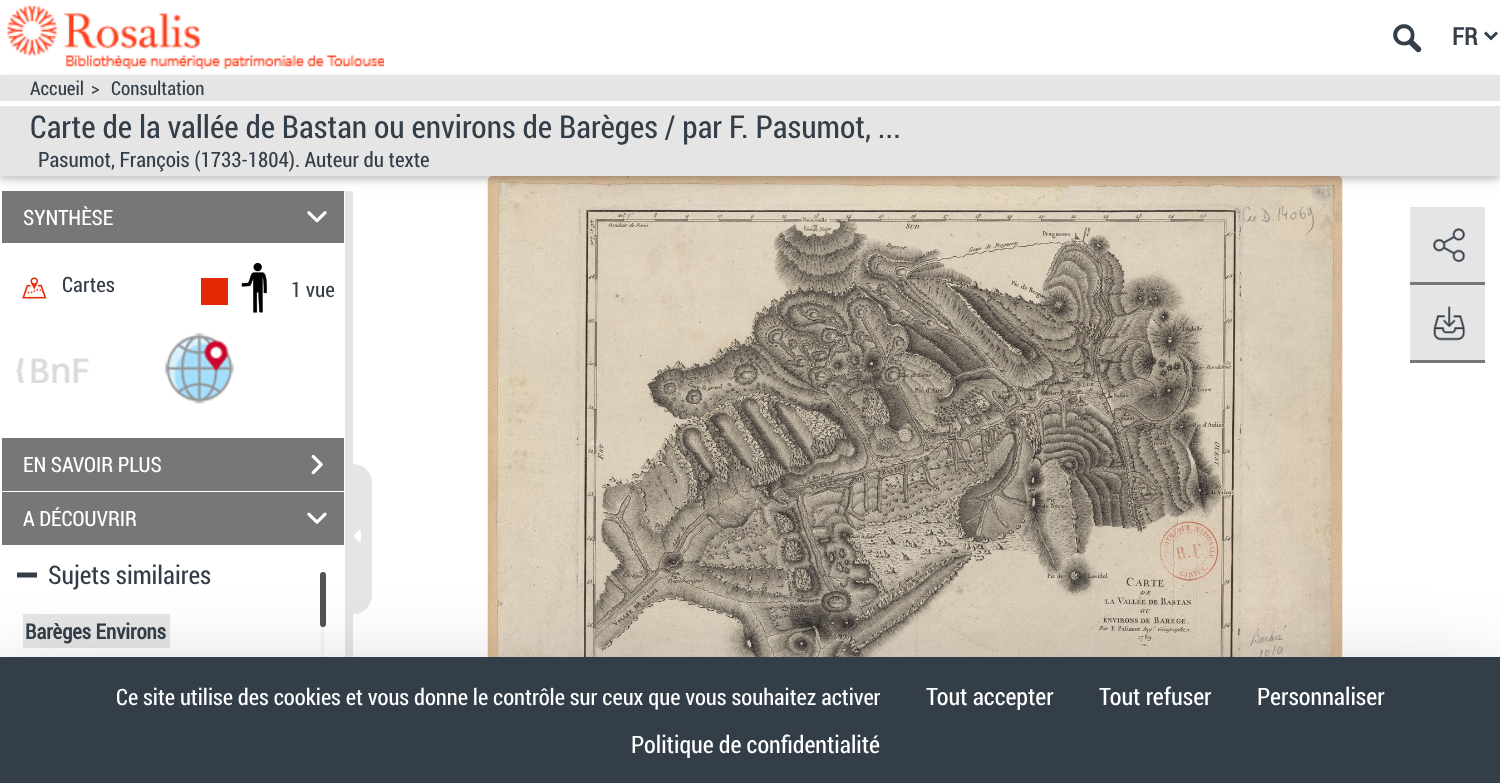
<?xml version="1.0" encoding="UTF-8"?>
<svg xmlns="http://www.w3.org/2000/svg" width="1500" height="783">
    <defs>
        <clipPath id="clip1"><rect x="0" y="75" width="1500" height="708"/></clipPath>
        <filter id="blur1" x="-50%" y="-200%" width="200%" height="500%"><feGaussianBlur stdDeviation="7.5"/></filter>
        <filter id="blur2" x="-50%" y="-200%" width="200%" height="500%"><feGaussianBlur stdDeviation="3"/></filter>
        <filter id="blur3" x="-50%" y="-200%" width="200%" height="500%"><feGaussianBlur stdDeviation="45"/></filter>
    </defs>
    <rect width="100%" height="100%" fill="#FFFFFF"/>
    <image x="487" y="176" width="856" height="481" href="img_11.png"/>
    <g clip-path="url(#clip1)">
        <rect x="0" y="78" width="1500" height="101" fill="#000000" fill-opacity="0.12" filter="url(#blur1)"/>
    </g>
    <rect x="0" y="78" width="1500" height="101" fill="#000000" fill-opacity="0.16" filter="url(#blur2)"/>
    <image x="7" y="5" width="377" height="65" href="img_01.png"/>
    <image x="1393" y="24" width="29" height="29" href="img_02.png"/>
    <path d="M 1485 32.5 L 1491 38.5 L 1497 32.5" fill="none" stroke="#333E49" stroke-width="3"/>
    <text x="1452" y="45" font-family="Roboto Condensed" font-size="24" font-weight="700" fill="#333E49">FR</text>
    <rect x="0" y="75" width="1500" height="101" fill="#E5E5E5"/>
    <rect x="0" y="101" width="1500" height="5" fill="#FFFFFF"/>
    <text x="30" y="95" font-family="Roboto Condensed" font-size="19" fill="#333E49">Accueil</text>
    <text x="91" y="95" font-family="Roboto Condensed" font-size="19" fill="#333E49">&gt;</text>
    <text x="111" y="95" font-family="Roboto Condensed" font-size="19" fill="#333E49">Consultation</text>
    <text x="30" y="138" font-family="Roboto Condensed" font-size="31.5" fill="#333E49">Carte de la vallée de Bastan ou environs de Barèges / par F. Pasumot, ...</text>
    <text x="38" y="167" font-family="Roboto Condensed" font-size="21" fill="#333E49">Pasumot, François (1733-1804). Auteur du texte</text>
    <rect x="345" y="191" width="8" height="466" fill="#E5E5E5"/>
    <rect x="2" y="191" width="342" height="52" fill="#797676"/>
    <text x="23" y="225" font-family="Roboto Condensed" font-size="21" fill="#FFFFFF">SYNTHÈSE</text>
    <image x="307" y="211" width="20" height="12" href="img_03.png"/>
    <image x="22" y="277" width="25" height="22" href="img_04.png"/>
    <text x="62" y="292" font-family="Roboto Condensed" font-size="21" fill="#333E49">Cartes</text>
    <rect x="201" y="278" width="27" height="27" fill="#E52805"/>
    <image x="241" y="262" width="26" height="51" href="img_05.png"/>
    <text x="291" y="297" font-family="Roboto Condensed" font-size="21" fill="#333E49">1 vue</text>
    <image x="16" y="358" width="73" height="25" href="img_06.png"/>
    <image x="164" y="333" width="71" height="71" href="img_07.png"/>
    <rect x="2" y="438" width="342" height="53" fill="#797676"/>
    <text x="23" y="472" font-family="Roboto Condensed" font-size="21" fill="#FFFFFF">EN SAVOIR PLUS</text>
    <image x="311" y="454" width="12" height="21" href="img_08.png"/>
    <rect x="2" y="492" width="342" height="53" fill="#797676"/>
    <text x="23" y="526" font-family="Roboto Condensed" font-size="21" fill="#FFFFFF">A DÉCOUVRIR</text>
    <image x="307" y="512" width="20" height="12" href="img_09.png"/>
    <text x="48" y="584" font-family="Roboto Condensed" font-size="25.5" fill="#333E49">Sujets similaires</text>
    <path d="M 24.5 577.5 H 17 V 572.5 H 37 V 577.5 Z" fill="#333E49"/>
    <rect x="23" y="614" width="147" height="34" fill="#E5E5E5"/>
    <text x="25" y="639" font-family="Roboto Condensed" font-size="21" font-weight="700" fill="#333E49">Barèges Environs</text>
    <rect x="321" y="572" width="3" height="189" rx="1.5" fill="#F5F5F5"/>
    <rect x="320" y="572" width="6" height="55" rx="3" fill="#525252"/>
    <path d="M 354 465 H 353 C 363 465 371 473 371 483 V 595 C 371 605 363 613 353 613 H 354 Z" fill="#E5E5E5" stroke="#E5E5E5" stroke-width="2"/>
    <image x="353" y="529" width="8" height="14" href="img_10.png"/>
    <rect x="1410" y="207" width="75" height="75" fill="#E5E5E5"/>
    <image x="1433" y="228" width="32" height="35" href="img_12.png"/>
    <rect x="1410" y="282" width="75" height="3" fill="#797676"/>
    <rect x="1410" y="285" width="75" height="75" fill="#E5E5E5"/>
    <image x="1433" y="306" width="32" height="35" href="img_13.png"/>
    <rect x="1410" y="360" width="75" height="3" fill="#797676"/>
    <rect x="0" y="687" width="1500" height="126" fill="#000000" fill-opacity="0.25" filter="url(#blur3)"/>
    <rect x="0" y="657" width="1500" height="126" fill="#333E49"/>
    <text x="116" y="705" font-family="Roboto Condensed" font-size="22.5" fill="#FFFFFF">Ce site utilise des cookies et vous donne le contrôle sur ceux que vous souhaitez activer</text>
    <text x="926" y="705" font-family="Roboto Condensed" font-size="24" fill="#FFFFFF">Tout accepter</text>
    <text x="1099" y="705" font-family="Roboto Condensed" font-size="24" fill="#FFFFFF">Tout refuser</text>
    <text x="1257" y="705" font-family="Roboto Condensed" font-size="24" fill="#FFFFFF">Personnaliser</text>
    <text x="631" y="753" font-family="Roboto Condensed" font-size="24" fill="#FFFFFF">Politique de confidentialité</text>
</svg>
